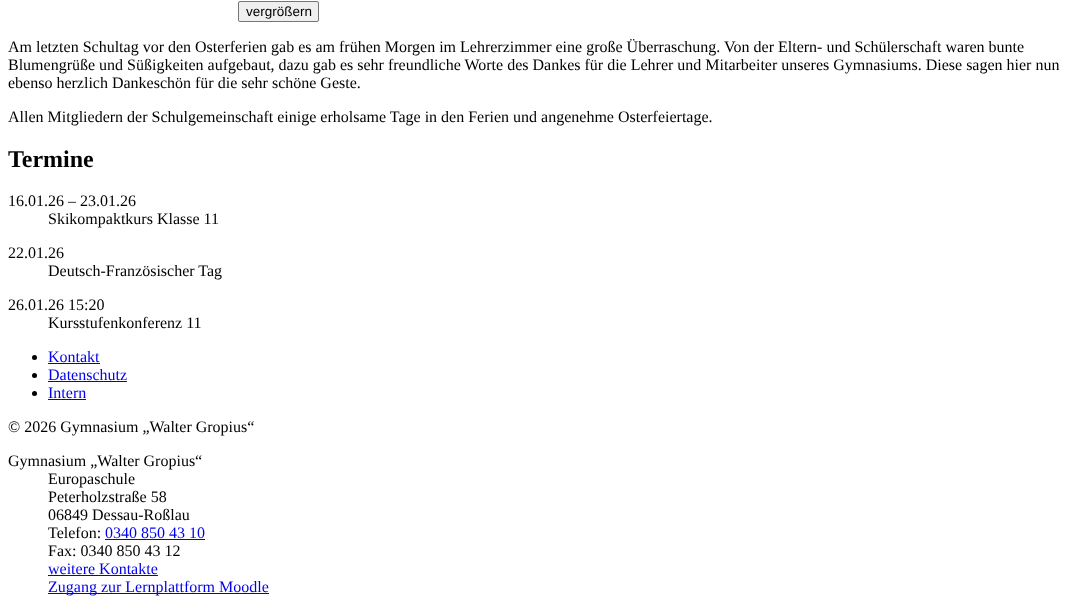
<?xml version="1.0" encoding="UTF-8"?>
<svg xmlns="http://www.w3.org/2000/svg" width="1074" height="603">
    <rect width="100%" height="100%" fill="#FFFFFF"/>
    <rect x="238.5" y="1.5" width="80" height="20" rx="1.5" fill="#EFEFEF" stroke="#767676"/>
    <text x="246" y="16" font-family="Liberation Sans" font-size="13.5" fill="#000000">vergrößern</text>
    <text font-family="Liberation Serif" font-size="16" fill="#000000">
        <tspan x="8" y="52">Am letzten Schultag vor den Osterferien gab es am frühen Morgen im Lehrerzimmer eine große Überraschung. Von der Eltern- und Schülerschaft waren bunte</tspan>
        <tspan x="8" y="70">Blumengrüße und Süßigkeiten aufgebaut, dazu gab es sehr freundliche Worte des Dankes für die Lehrer und Mitarbeiter unseres Gymnasiums. Diese sagen hier nun</tspan>
        <tspan x="8" y="88">ebenso herzlich Dankeschön für die sehr schöne Geste.</tspan>
    </text>
    <text x="8" y="122" font-family="Liberation Serif" font-size="16" fill="#000000">Allen Mitgliedern der Schulgemeinschaft einige erholsame Tage in den Ferien und angenehme Osterfeiertage.</text>
    <text x="8" y="167" font-family="Liberation Serif" font-size="24" font-weight="700" fill="#000000">Termine</text>
    <text x="8" y="206" font-family="Liberation Serif" font-size="16" fill="#000000">16.01.26 – 23.01.26</text>
    <text x="48" y="224" font-family="Liberation Serif" font-size="16" fill="#000000">Skikompaktkurs Klasse 11</text>
    <text x="8" y="258" font-family="Liberation Serif" font-size="16" fill="#000000">22.01.26</text>
    <text x="48" y="276" font-family="Liberation Serif" font-size="16" fill="#000000">Deutsch-Französischer Tag</text>
    <text x="8" y="310" font-family="Liberation Serif" font-size="16" fill="#000000">26.01.26 15:20</text>
    <text x="48" y="328" font-family="Liberation Serif" font-size="16" fill="#000000">Kursstufenkonferenz 11</text>
    <circle cx="34.5" cy="357.5" r="2.5" fill="#000000"/>
    <text x="48" y="362" font-family="Liberation Serif" font-size="16" fill="#0000EE">Kontakt</text>
    <rect x="48" y="363" width="52" height="1" fill="#0000EE"/>
    <circle cx="34.5" cy="375.5" r="2.5" fill="#000000"/>
    <text x="48" y="380" font-family="Liberation Serif" font-size="16" fill="#0000EE">Datenschutz</text>
    <rect x="48" y="381" width="79" height="1" fill="#0000EE"/>
    <circle cx="34.5" cy="393.5" r="2.5" fill="#000000"/>
    <text x="48" y="398" font-family="Liberation Serif" font-size="16" fill="#0000EE">Intern</text>
    <rect x="48" y="399" width="38" height="1" fill="#0000EE"/>
    <text x="8" y="432" font-family="Liberation Serif" font-size="16" fill="#000000">© 2026 Gymnasium „Walter Gropius“</text>
    <text x="8" y="466" font-family="Liberation Serif" font-size="16" fill="#000000">Gymnasium „Walter Gropius“</text>
    <text font-family="Liberation Serif" font-size="16" fill="#000000">
        <tspan x="48" y="484">Europaschule</tspan>
        <tspan x="48" y="502">Peterholzstraße 58</tspan>
        <tspan x="48" y="520">06849 Dessau-Roßlau</tspan>
        <tspan x="48" y="538">Telefon:</tspan>
    </text>
    <text x="105" y="538" font-family="Liberation Serif" font-size="16" fill="#0000EE">0340 850 43 10</text>
    <rect x="105" y="539" width="100" height="1" fill="#0000EE"/>
    <text x="48" y="556" font-family="Liberation Serif" font-size="16" fill="#000000">Fax: 0340 850 43 12</text>
    <text x="48" y="574" font-family="Liberation Serif" font-size="16" fill="#0000EE">weitere Kontakte</text>
    <rect x="48" y="575" width="110" height="1" fill="#0000EE"/>
    <rect x="48" y="593" width="221" height="1" fill="#0000EE"/>
    <text x="48" y="592" font-family="Liberation Serif" font-size="16" fill="#0000EE">Zugang zur Lernplattform Moodle</text>
</svg>
